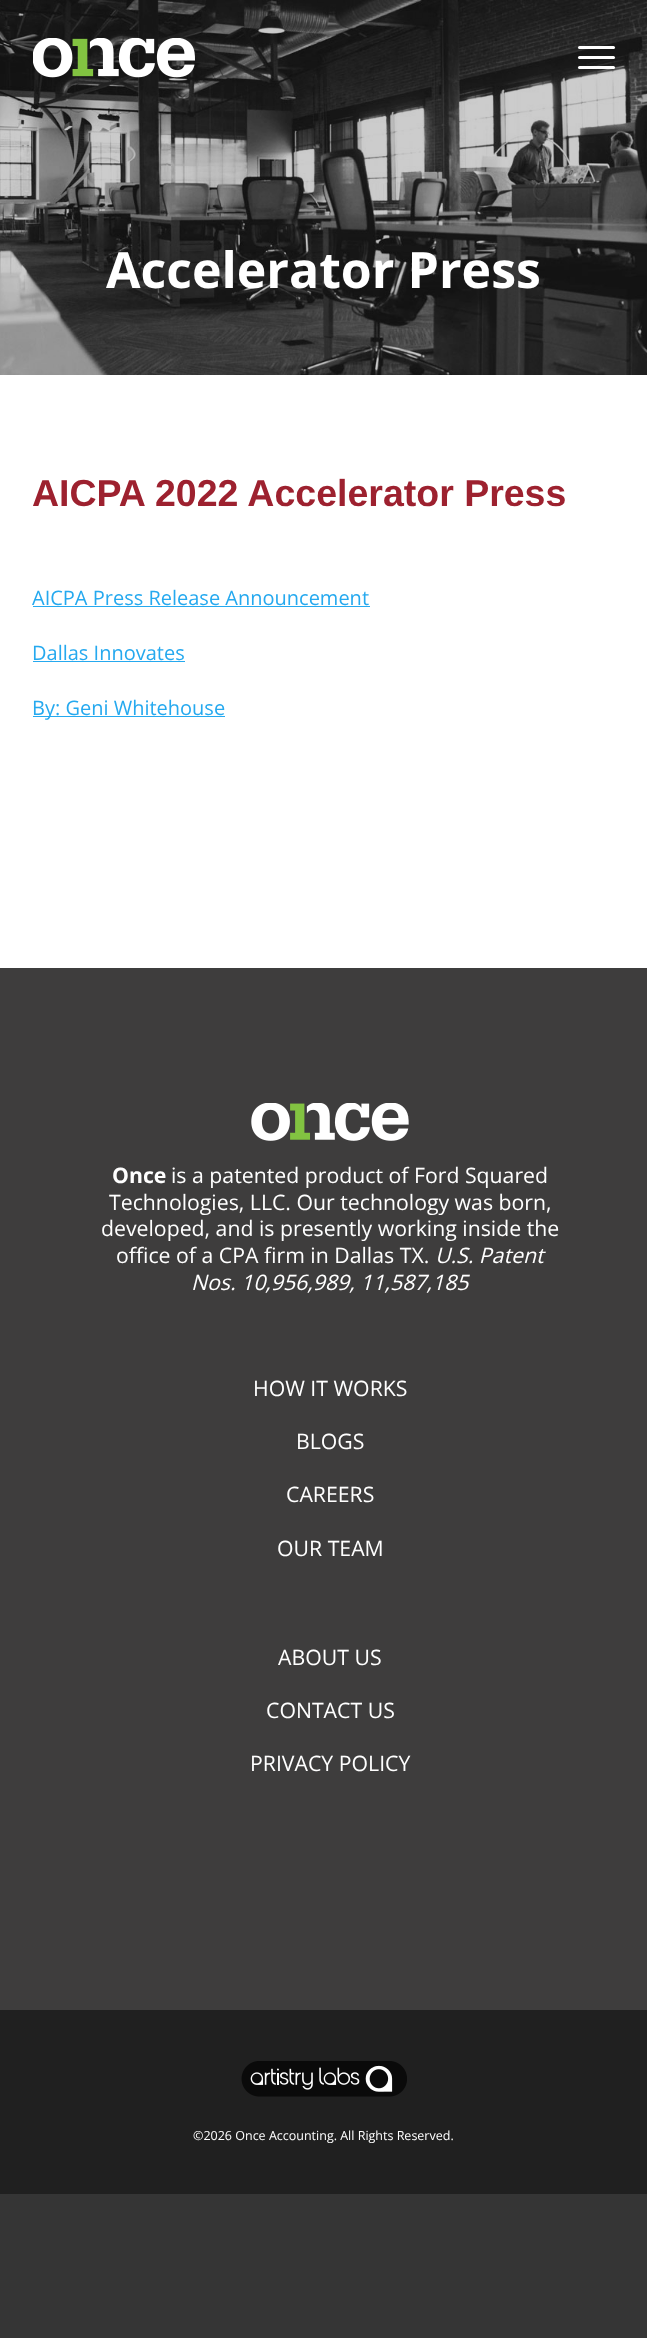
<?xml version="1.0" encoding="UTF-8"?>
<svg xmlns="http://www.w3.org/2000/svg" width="647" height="2338">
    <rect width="100%" height="100%" fill="#353535"/>
    <image x="0" y="0" width="647" height="375" href="img_02.png"/>
    <image x="33" y="38" width="162" height="40" href="img_01.png"/>
    <rect x="578" y="56" width="37" height="3" rx="1.5" fill="#FFFFFF"/>
    <rect x="578" y="46" width="37" height="3" rx="1.5" fill="#FFFFFF"/>
    <rect x="578" y="66" width="37" height="3" rx="1.5" fill="#FFFFFF"/>
    <text x="106" y="288" font-family="Open Sans" font-size="50" font-weight="700" fill="#FFFFFF">Accelerator Press</text>
    <rect x="0" y="375" width="647" height="593" fill="#FFFFFF"/>
    <text x="32" y="506" font-family="Liberation Sans" font-size="37.5" font-weight="700" fill="#9D212F">AICPA 2022 Accelerator Press</text>
    <text x="32" y="605" font-family="Open Sans" font-size="20" fill="#25A9EF">AICPA Press Release Announcement</text>
    <rect x="33" y="606" width="337" height="1" fill="#25A9EF"/>
    <text x="32" y="660" font-family="Open Sans" font-size="20" fill="#25A9EF">Dallas Innovates</text>
    <rect x="33" y="661" width="152" height="1" fill="#25A9EF"/>
    <rect x="33" y="716" width="192" height="1" fill="#25A9EF"/>
    <text x="32" y="715" font-family="Open Sans" font-size="20" fill="#25A9EF">By: Geni Whitehouse</text>
    <rect x="0" y="968" width="647" height="1042" fill="#3E3D3D"/>
    <image x="251" y="1103" width="158" height="38" href="img_03.png"/>
    <text x="112" y="1183" font-family="Open Sans" font-size="21.25" font-weight="700" fill="#FFFFFF">Once</text>
    <text x="171" y="1183" font-family="Open Sans" font-size="21.25" fill="#FFFFFF">is a patented product of Ford Squared</text>
    <text x="109" y="1210" font-family="Open Sans" font-size="21.25" fill="#FFFFFF">Technologies, LLC. Our technology was born,</text>
    <text x="101" y="1236" font-family="Open Sans" font-size="21.25" fill="#FFFFFF">developed, and is presently working inside the</text>
    <text x="116" y="1263" font-family="Open Sans" font-size="21.25" fill="#FFFFFF">office of a CPA firm in Dallas TX.</text>
    <text x="435" y="1263" font-family="Open Sans" font-size="21.25" font-style="italic" fill="#FFFFFF">U.S. Patent</text>
    <text x="191" y="1290" font-family="Open Sans" font-size="21.25" font-style="italic" fill="#FFFFFF">Nos. 10,956,989, 11,587,185</text>
    <text x="253" y="1396" font-family="Open Sans" font-size="21.25" fill="#FFFFFF">HOW IT WORKS</text>
    <text x="296" y="1449" font-family="Open Sans" font-size="21.25" fill="#FFFFFF">BLOGS</text>
    <text x="286" y="1502" font-family="Open Sans" font-size="21.25" fill="#FFFFFF">CAREERS</text>
    <text x="277" y="1556" font-family="Open Sans" font-size="21.25" fill="#FFFFFF">OUR TEAM</text>
    <text x="278" y="1665" font-family="Open Sans" font-size="21.25" fill="#FFFFFF">ABOUT US</text>
    <text x="266" y="1718" font-family="Open Sans" font-size="21.25" fill="#FFFFFF">CONTACT US</text>
    <text x="250" y="1771" font-family="Open Sans" font-size="21.25" fill="#FFFFFF">PRIVACY POLICY</text>
    <rect x="0" y="2010" width="647" height="184" fill="#202020"/>
    <image x="241" y="2061" width="166" height="36" href="img_04.png"/>
    <text x="193" y="2140" font-family="Open Sans" font-size="12.5" fill="#FFFFFF">©2026 Once Accounting. All Rights Reserved.</text>
</svg>
